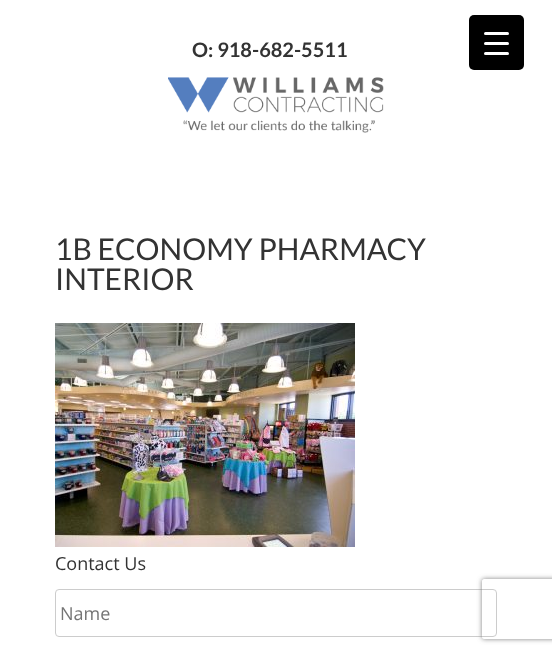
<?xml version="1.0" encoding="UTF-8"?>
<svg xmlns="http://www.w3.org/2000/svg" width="552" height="653">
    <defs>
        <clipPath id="clip1"><path d="M 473 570 H 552 V 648 H 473 Z M 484 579 H 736 C 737 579 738 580 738 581 V 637 C 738 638 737 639 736 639 H 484 C 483 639 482 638 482 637 V 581 C 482 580 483 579 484 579 Z" clip-rule="evenodd"/></clipPath>
        <filter id="blur1" x="-50%" y="-200%" width="200%" height="500%"><feGaussianBlur stdDeviation="2.5"/></filter>
    </defs>
    <rect width="100%" height="100%" fill="#FFFFFF"/>
    <text x="192" y="57" font-family="Lato" font-size="20" font-weight="700" fill="#333333">O: 918-682-5511</text>
    <image x="168" y="77" width="216" height="56" href="img_01.png"/>
    <text font-family="Lato" font-size="30" fill="#333333">
        <tspan x="55" y="260">1B ECONOMY PHARMACY</tspan>
        <tspan x="55" y="290">INTERIOR</tspan>
    </text>
    <image x="55" y="323" width="300" height="224" href="img_02.png"/>
    <text x="55" y="570" font-family="Open Sans" font-size="18" fill="#333333">Contact Us</text>
    <rect x="55.5" y="589.5" width="441" height="47" rx="3.5" fill="none" stroke="#CCCCCC"/>
    <text x="60" y="620" font-family="Open Sans" font-size="18" fill="#757575">Name</text>
    <rect x="469" y="15" width="55" height="55" rx="5" fill="#000000"/>
    <rect x="484" y="42" width="25" height="3" rx="1.5" fill="#FFFFFF"/>
    <rect x="484" y="32" width="25" height="3" rx="1.5" fill="#FFFFFF"/>
    <rect x="484" y="52" width="25" height="3" rx="1.5" fill="#FFFFFF"/>
    <g clip-path="url(#clip1)">
        <rect x="482" y="579" width="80" height="60" rx="2" fill="#808080" filter="url(#blur1)"/>
    </g>
</svg>
